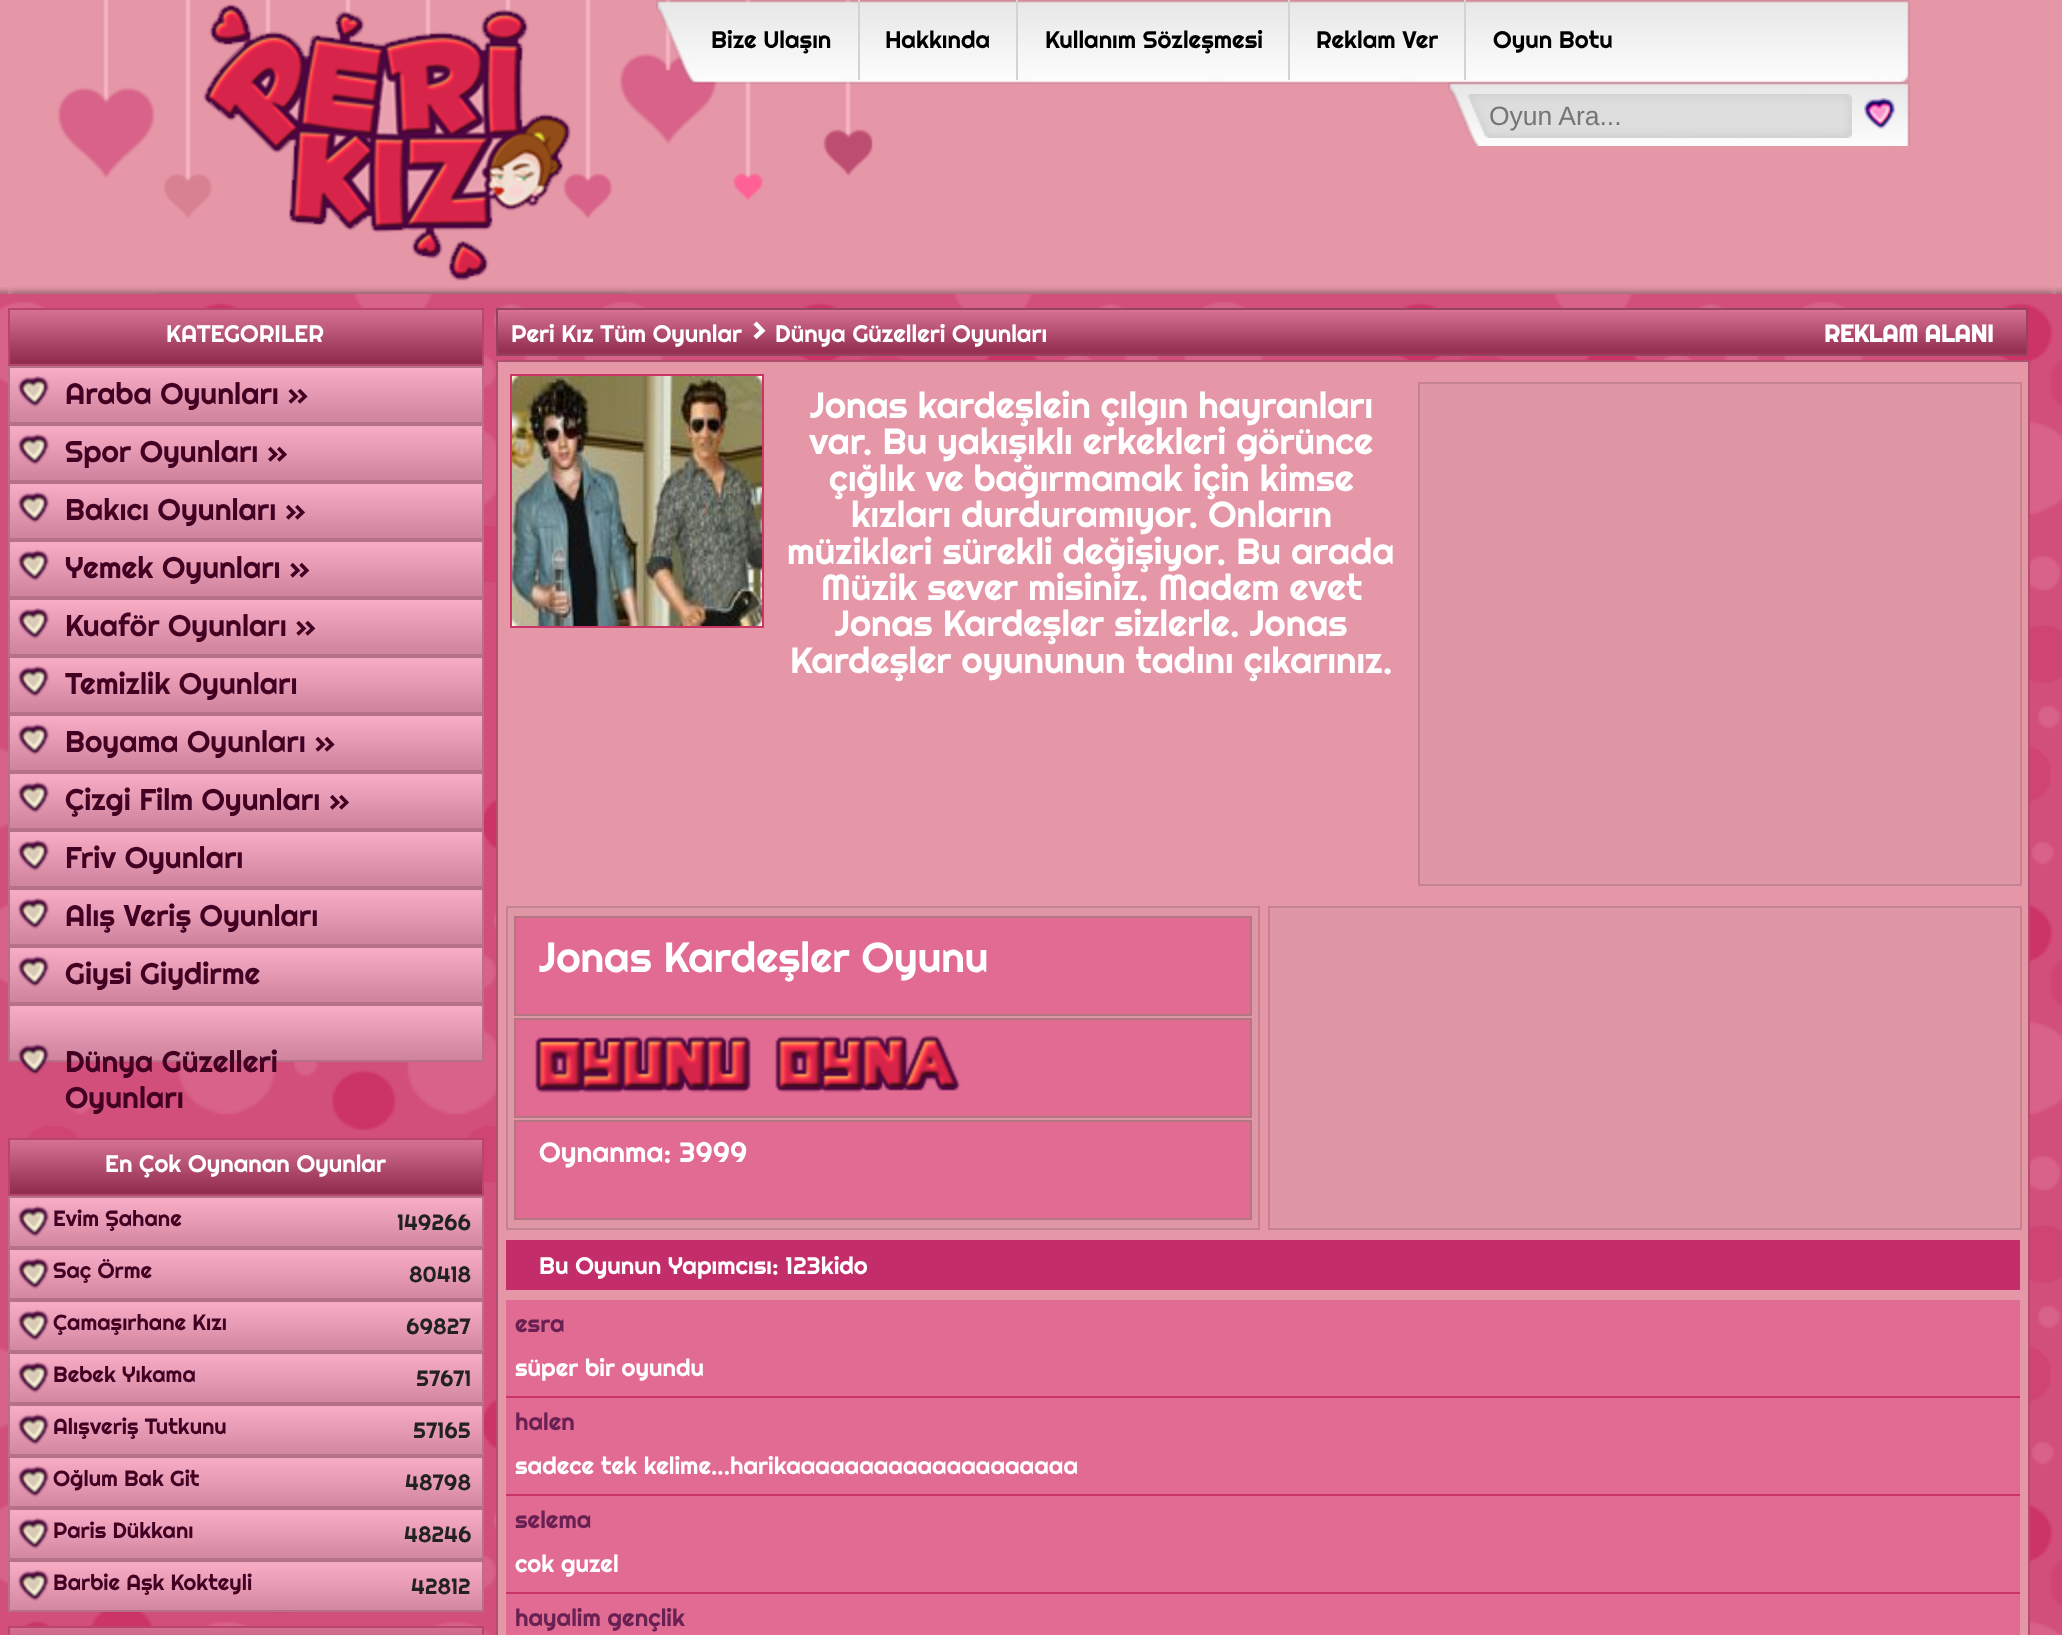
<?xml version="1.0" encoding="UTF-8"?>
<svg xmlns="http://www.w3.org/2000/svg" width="2062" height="1635">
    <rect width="100%" height="100%" fill="#E697A7"/>
    <image x="0" y="287" width="2062" height="7" href="img_01.png"/>
    <image x="8" y="0" width="2048" height="294" href="img_02.png"/>
    <image x="203" y="3" width="368" height="278" href="img_03.png"/>
    <image x="656" y="0" width="1254" height="84" href="img_04.png"/>
    <text x="711" y="48" font-family="Righteous" font-size="24" fill="#000000">Bize Ulaşın</text>
    <rect x="858" y="0" width="2" height="80" fill="#D3D3D3"/>
    <text x="885" y="48" font-family="Righteous" font-size="24" fill="#000000">Hakkında</text>
    <rect x="1016" y="0" width="2" height="80" fill="#D3D3D3"/>
    <text x="1045" y="48" font-family="Righteous" font-size="24" fill="#000000">Kullanım Sözleşmesi</text>
    <rect x="1288" y="0" width="2" height="80" fill="#D3D3D3"/>
    <text x="1316" y="48" font-family="Righteous" font-size="24" fill="#000000">Reklam Ver</text>
    <rect x="1464" y="0" width="2" height="80" fill="#D3D3D3"/>
    <text x="1493" y="48" font-family="Righteous" font-size="24" fill="#000000">Oyun Botu</text>
    <image x="1448" y="82" width="462" height="64" href="img_05.png"/>
    <image x="1467" y="94" width="385" height="44" href="img_06.png"/>
    <text x="1489" y="125" font-family="Liberation Sans" font-size="26.5" fill="#757575">Oyun Ara...</text>
    <image x="1864" y="98" width="32" height="32" href="img_07.png"/>
    <image x="0" y="294" width="2062" height="1341" href="img_08.png"/>
    <image x="10" y="310" width="472" height="54" href="img_09.png"/>
    <rect x="9" y="309" width="474" height="56" fill="none" stroke="#B8456B" stroke-width="2"/>
    <text x="166" y="342" font-family="Righteous" font-size="24" fill="#FFFFFF">KATEGORILER</text>
    <image x="10" y="368" width="472" height="54" href="img_10.png"/>
    <rect x="9" y="367" width="474" height="56" fill="none" stroke="#B67088" stroke-width="2"/>
    <image x="18" y="376" width="32" height="31" href="img_11.png"/>
    <text x="65" y="404" font-family="Righteous" font-size="30" fill="#420023">Araba Oyunları »</text>
    <image x="10" y="426" width="472" height="54" href="img_10.png"/>
    <rect x="9" y="425" width="474" height="56" fill="none" stroke="#B67088" stroke-width="2"/>
    <image x="18" y="434" width="32" height="31" href="img_11.png"/>
    <text x="65" y="462" font-family="Righteous" font-size="30" fill="#420023">Spor Oyunları »</text>
    <image x="10" y="484" width="472" height="54" href="img_10.png"/>
    <rect x="9" y="483" width="474" height="56" fill="none" stroke="#B67088" stroke-width="2"/>
    <image x="18" y="492" width="32" height="31" href="img_11.png"/>
    <text x="65" y="520" font-family="Righteous" font-size="30" fill="#420023">Bakıcı Oyunları »</text>
    <image x="10" y="542" width="472" height="54" href="img_10.png"/>
    <rect x="9" y="541" width="474" height="56" fill="none" stroke="#B67088" stroke-width="2"/>
    <image x="18" y="550" width="32" height="31" href="img_11.png"/>
    <text x="65" y="578" font-family="Righteous" font-size="30" fill="#420023">Yemek Oyunları »</text>
    <image x="10" y="600" width="472" height="54" href="img_10.png"/>
    <rect x="9" y="599" width="474" height="56" fill="none" stroke="#B67088" stroke-width="2"/>
    <image x="18" y="608" width="32" height="31" href="img_11.png"/>
    <text x="65" y="636" font-family="Righteous" font-size="30" fill="#420023">Kuaför Oyunları »</text>
    <image x="10" y="658" width="472" height="54" href="img_10.png"/>
    <rect x="9" y="657" width="474" height="56" fill="none" stroke="#B67088" stroke-width="2"/>
    <image x="18" y="666" width="32" height="31" href="img_11.png"/>
    <text x="65" y="694" font-family="Righteous" font-size="30" fill="#420023">Temizlik Oyunları</text>
    <image x="10" y="716" width="472" height="54" href="img_10.png"/>
    <rect x="9" y="715" width="474" height="56" fill="none" stroke="#B67088" stroke-width="2"/>
    <image x="18" y="724" width="32" height="31" href="img_11.png"/>
    <text x="65" y="752" font-family="Righteous" font-size="30" fill="#420023">Boyama Oyunları »</text>
    <image x="10" y="774" width="472" height="54" href="img_10.png"/>
    <rect x="9" y="773" width="474" height="56" fill="none" stroke="#B67088" stroke-width="2"/>
    <image x="18" y="782" width="32" height="31" href="img_11.png"/>
    <text x="65" y="810" font-family="Righteous" font-size="30" fill="#420023">Çizgi Film Oyunları »</text>
    <image x="10" y="832" width="472" height="54" href="img_10.png"/>
    <rect x="9" y="831" width="474" height="56" fill="none" stroke="#B67088" stroke-width="2"/>
    <image x="18" y="840" width="32" height="31" href="img_11.png"/>
    <text x="65" y="868" font-family="Righteous" font-size="30" fill="#420023">Friv Oyunları</text>
    <image x="10" y="890" width="472" height="54" href="img_10.png"/>
    <rect x="9" y="889" width="474" height="56" fill="none" stroke="#B67088" stroke-width="2"/>
    <image x="18" y="898" width="32" height="31" href="img_11.png"/>
    <text x="65" y="926" font-family="Righteous" font-size="30" fill="#420023">Alış Veriş Oyunları</text>
    <image x="10" y="948" width="472" height="54" href="img_10.png"/>
    <rect x="9" y="947" width="474" height="56" fill="none" stroke="#B67088" stroke-width="2"/>
    <image x="18" y="956" width="32" height="31" href="img_11.png"/>
    <text x="65" y="984" font-family="Righteous" font-size="30" fill="#420023">Giysi Giydirme</text>
    <image x="10" y="1006" width="472" height="54" href="img_10.png"/>
    <rect x="9" y="1005" width="474" height="56" fill="none" stroke="#B67088" stroke-width="2"/>
    <image x="18" y="1044" width="32" height="31" href="img_12.png"/>
    <text font-family="Righteous" font-size="30" fill="#420023">
        <tspan x="65" y="1072">Dünya Güzelleri</tspan>
        <tspan x="65" y="1108">Oyunları</tspan>
    </text>
    <image x="10" y="1140" width="472" height="54" href="img_09.png"/>
    <rect x="9" y="1139" width="474" height="56" fill="none" stroke="#B8456B" stroke-width="2"/>
    <text x="105" y="1172" font-family="Righteous" font-size="24" fill="#FFFFFF">En Çok Oynanan Oyunlar</text>
    <image x="10" y="1198" width="472" height="48" href="img_13.png"/>
    <rect x="9" y="1197" width="474" height="50" fill="none" stroke="#B67088" stroke-width="2"/>
    <image x="18" y="1206" width="32" height="31" href="img_11.png"/>
    <text x="53" y="1226" font-family="Righteous" font-size="22" fill="#420023">Evim Şahane</text>
    <text x="397" y="1230" font-family="Righteous" font-size="22" fill="#222222">149266</text>
    <image x="10" y="1250" width="472" height="48" href="img_13.png"/>
    <rect x="9" y="1249" width="474" height="50" fill="none" stroke="#B67088" stroke-width="2"/>
    <image x="18" y="1258" width="32" height="31" href="img_11.png"/>
    <text x="53" y="1278" font-family="Righteous" font-size="22" fill="#420023">Saç Örme</text>
    <text x="409" y="1282" font-family="Righteous" font-size="22" fill="#222222">80418</text>
    <image x="10" y="1302" width="472" height="48" href="img_13.png"/>
    <rect x="9" y="1301" width="474" height="50" fill="none" stroke="#B67088" stroke-width="2"/>
    <image x="18" y="1310" width="32" height="31" href="img_11.png"/>
    <text x="53" y="1330" font-family="Righteous" font-size="22" fill="#420023">Çamaşırhane Kızı</text>
    <text x="406" y="1334" font-family="Righteous" font-size="22" fill="#222222">69827</text>
    <image x="10" y="1354" width="472" height="48" href="img_13.png"/>
    <rect x="9" y="1353" width="474" height="50" fill="none" stroke="#B67088" stroke-width="2"/>
    <image x="18" y="1362" width="32" height="31" href="img_11.png"/>
    <text x="53" y="1382" font-family="Righteous" font-size="22" fill="#420023">Bebek Yıkama</text>
    <text x="416" y="1386" font-family="Righteous" font-size="22" fill="#222222">57671</text>
    <image x="10" y="1406" width="472" height="48" href="img_13.png"/>
    <rect x="9" y="1405" width="474" height="50" fill="none" stroke="#B67088" stroke-width="2"/>
    <image x="18" y="1414" width="32" height="31" href="img_11.png"/>
    <text x="53" y="1434" font-family="Righteous" font-size="22" fill="#420023">Alışveriş Tutkunu</text>
    <text x="413" y="1438" font-family="Righteous" font-size="22" fill="#222222">57165</text>
    <image x="10" y="1458" width="472" height="48" href="img_13.png"/>
    <rect x="9" y="1457" width="474" height="50" fill="none" stroke="#B67088" stroke-width="2"/>
    <image x="18" y="1466" width="32" height="31" href="img_11.png"/>
    <text x="53" y="1486" font-family="Righteous" font-size="22" fill="#420023">Oğlum Bak Git</text>
    <text x="405" y="1490" font-family="Righteous" font-size="22" fill="#222222">48798</text>
    <image x="10" y="1510" width="472" height="48" href="img_13.png"/>
    <rect x="9" y="1509" width="474" height="50" fill="none" stroke="#B67088" stroke-width="2"/>
    <image x="18" y="1518" width="32" height="31" href="img_11.png"/>
    <text x="53" y="1538" font-family="Righteous" font-size="22" fill="#420023">Paris Dükkanı</text>
    <text x="404" y="1542" font-family="Righteous" font-size="22" fill="#222222">48246</text>
    <image x="10" y="1562" width="472" height="48" href="img_13.png"/>
    <rect x="9" y="1561" width="474" height="50" fill="none" stroke="#B67088" stroke-width="2"/>
    <image x="18" y="1570" width="32" height="31" href="img_11.png"/>
    <text x="53" y="1590" font-family="Righteous" font-size="22" fill="#420023">Barbie Aşk Kokteyli</text>
    <text x="411" y="1594" font-family="Righteous" font-size="22" fill="#222222">42812</text>
    <image x="10" y="1628" width="472" height="7" href="img_14.png"/>
    <rect x="9" y="1627" width="474" height="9" fill="none" stroke="#B8456B" stroke-width="2"/>
    <image x="498" y="310" width="1528" height="44" href="img_15.png"/>
    <rect x="497" y="309" width="1530" height="46" fill="none" stroke="#93445F" stroke-width="2"/>
    <text x="511" y="342" font-family="Righteous" font-size="24" fill="#FFFFFF">Peri Kız Tüm Oyunlar</text>
    <text x="752" y="342" font-family="Righteous" font-size="30" fill="#FFFFFF">&gt;</text>
    <text x="775" y="342" font-family="Righteous" font-size="24" fill="#FFFFFF">Dünya Güzelleri Oyunları</text>
    <text x="1824" y="342" font-family="Righteous" font-size="24" font-weight="700" fill="#FFFFFF">REKLAM ALANI</text>
    <rect x="497" y="361" width="1532" height="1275" fill="#E697A7" stroke="#AF506F" stroke-width="2"/>
    <rect x="511" y="375" width="252" height="252" fill="none" stroke="#CC3366" stroke-width="2"/>
    <image x="512" y="376" width="250" height="250" href="img_16.png"/>
    <text x="810" y="418" font-family="Righteous" font-size="36.4" fill="#FFFFFF">Jonas kardeşlein çılgın hayranları</text>
    <text x="809" y="454" font-family="Righteous" font-size="36.4" fill="#FFFFFF">var. Bu yakışıklı erkekleri görünce</text>
    <text x="829" y="491" font-family="Righteous" font-size="36.4" fill="#FFFFFF">çığlık ve bağırmamak için kimse</text>
    <text x="851" y="527" font-family="Righteous" font-size="36.4" fill="#FFFFFF">kızları durduramıyor. Onların</text>
    <text x="787" y="564" font-family="Righteous" font-size="36.4" fill="#FFFFFF">müzikleri sürekli değişiyor. Bu arada</text>
    <text x="821" y="600" font-family="Righteous" font-size="36.4" fill="#FFFFFF">Müzik sever misiniz. Madem evet</text>
    <text x="835" y="636" font-family="Righteous" font-size="36.4" fill="#FFFFFF">Jonas Kardeşler sizlerle. Jonas</text>
    <text x="790" y="673" font-family="Righteous" font-size="36.4" fill="#FFFFFF">Kardeşler oyununun tadını çıkarınız.</text>
    <rect x="1419" y="383" width="602" height="502" fill="#DF97A5" stroke="#C68290" stroke-width="2"/>
    <rect x="507" y="907" width="752" height="322" fill="#DF97A5" stroke="#C68290" stroke-width="2"/>
    <rect x="515" y="917" width="736" height="98" fill="#E16B92" stroke="#B57683" stroke-width="2"/>
    <text x="539" y="972" font-family="Righteous" font-size="42" fill="#FFFFFF">Jonas Kardeşler Oyunu</text>
    <rect x="515" y="1019" width="736" height="98" fill="#E16B92" stroke="#B57683" stroke-width="2"/>
    <image x="535" y="1035" width="426" height="58" href="img_17.png"/>
    <rect x="515" y="1121" width="736" height="98" fill="#E16B92" stroke="#B57683" stroke-width="2"/>
    <text x="539" y="1162" font-family="Righteous" font-size="28" fill="#FFFFFF">Oynanma: 3999</text>
    <rect x="1269" y="907" width="752" height="322" fill="#DF97A5" stroke="#C68290" stroke-width="2"/>
    <rect x="506" y="1240" width="1514" height="50" fill="#C32D69"/>
    <text x="539" y="1274" font-family="Righteous" font-size="24" fill="#FFFFFF">Bu Oyunun Yapımcısı: 123kido</text>
    <rect x="506" y="1300" width="1514" height="335" fill="#E16B92"/>
    <rect x="506" y="1396" width="1514" height="2" fill="#CC3366"/>
    <text x="515" y="1332" font-family="Righteous" font-size="24" fill="#692153">esra</text>
    <text x="515" y="1376" font-family="Righteous" font-size="24" fill="#FFFFFF">süper bir oyundu</text>
    <rect x="506" y="1494" width="1514" height="2" fill="#CC3366"/>
    <text x="515" y="1430" font-family="Righteous" font-size="24" fill="#692153">halen</text>
    <text x="515" y="1474" font-family="Righteous" font-size="24" fill="#FFFFFF">sadece tek kelime...harikaaaaaaaaaaaaaaaaaaaa</text>
    <rect x="506" y="1592" width="1514" height="2" fill="#CC3366"/>
    <text x="515" y="1528" font-family="Righteous" font-size="24" fill="#692153">selema</text>
    <text x="515" y="1572" font-family="Righteous" font-size="24" fill="#FFFFFF">cok guzel</text>
    <text x="515" y="1626" font-family="Righteous" font-size="24" fill="#692153">hayalim gençlik</text>
</svg>
